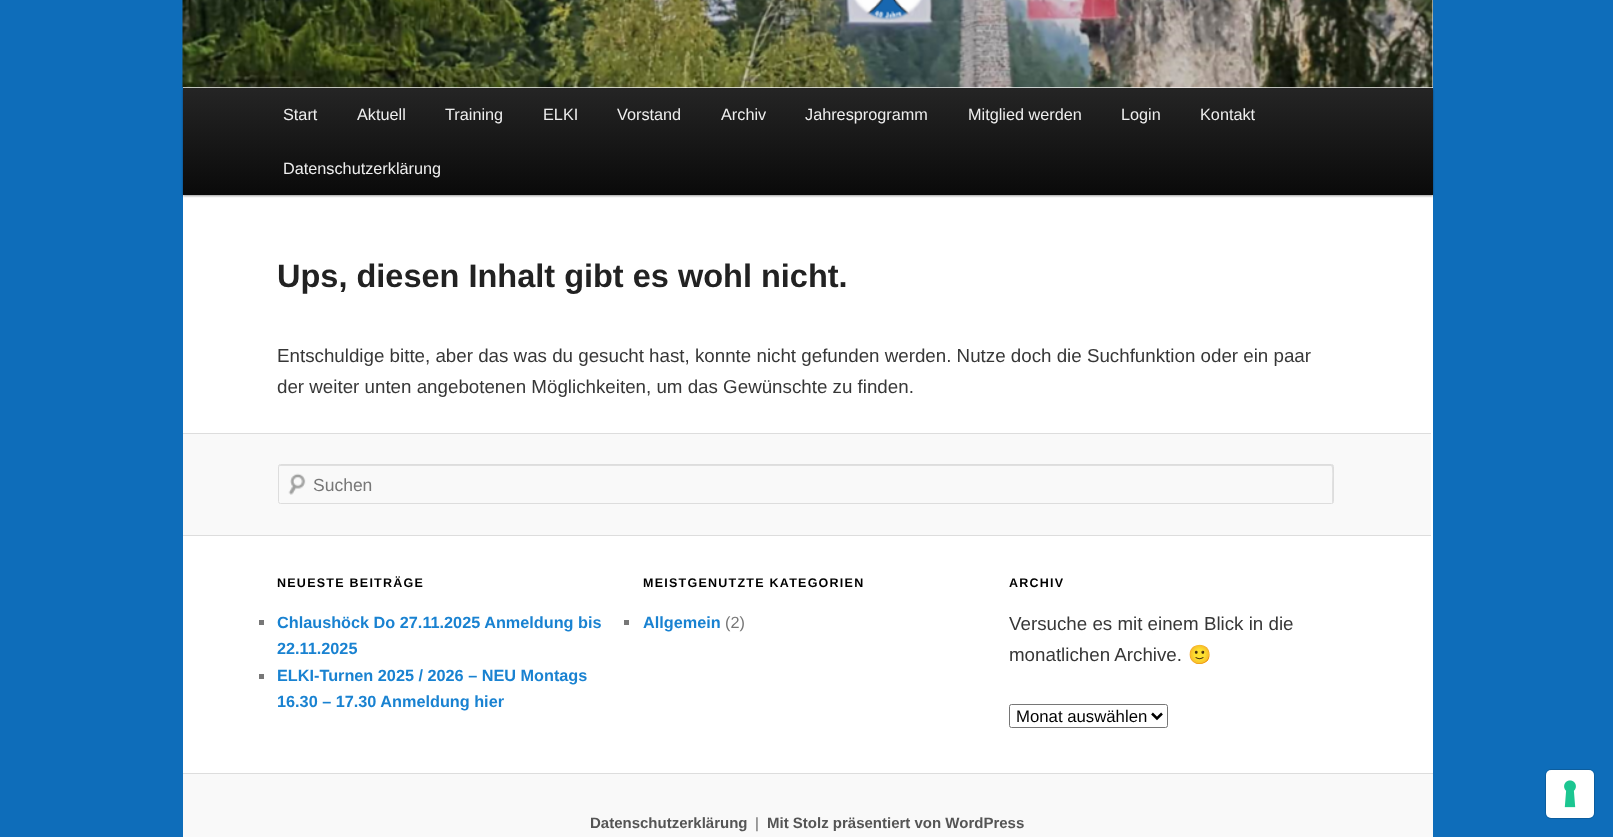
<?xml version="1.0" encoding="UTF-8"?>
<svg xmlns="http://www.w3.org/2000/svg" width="1613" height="837">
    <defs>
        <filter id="blur1" x="-50%" y="-200%" width="200%" height="500%"><feGaussianBlur stdDeviation="1"/></filter>
        <linearGradient id="g1" gradientUnits="userSpaceOnUse" x1="808" y1="87" x2="808" y2="195"><stop offset="0" stop-color="#252525"/><stop offset="1" stop-color="#0A0A0A"/></linearGradient>
    </defs>
    <rect width="100%" height="100%" fill="#0E6DBA"/>
    <rect x="183" y="0" width="1250" height="773" fill="#FFFFFF"/>
    <rect x="183" y="89" width="1250" height="107" fill="#000000" fill-opacity="0.4" filter="url(#blur1)"/>
    <image x="182" y="0" width="1251" height="88" href="img_01.png"/>
    <rect x="183" y="88" width="1250" height="107" fill="url(#g1)"/>
    <text x="283" y="120" font-family="Liberation Sans" font-size="16.25" fill="#EEEEEE">Start</text>
    <text x="357" y="120" font-family="Liberation Sans" font-size="16.25" fill="#EEEEEE">Aktuell</text>
    <text x="445" y="120" font-family="Liberation Sans" font-size="16.25" fill="#EEEEEE">Training</text>
    <text x="543" y="120" font-family="Liberation Sans" font-size="16.25" fill="#EEEEEE">ELKI</text>
    <text x="617" y="120" font-family="Liberation Sans" font-size="16.25" fill="#EEEEEE">Vorstand</text>
    <text x="721" y="120" font-family="Liberation Sans" font-size="16.25" fill="#EEEEEE">Archiv</text>
    <text x="805" y="120" font-family="Liberation Sans" font-size="16.25" fill="#EEEEEE">Jahresprogramm</text>
    <text x="968" y="120" font-family="Liberation Sans" font-size="16.25" fill="#EEEEEE">Mitglied werden</text>
    <text x="1121" y="120" font-family="Liberation Sans" font-size="16.25" fill="#EEEEEE">Login</text>
    <text x="1200" y="120" font-family="Liberation Sans" font-size="16.25" fill="#EEEEEE">Kontakt</text>
    <text x="283" y="174" font-family="Liberation Sans" font-size="16.25" fill="#EEEEEE">Datenschutzerklärung</text>
    <text x="277" y="287" font-family="Liberation Sans" font-size="32.5" font-weight="700" fill="#222222">Ups, diesen Inhalt gibt es wohl nicht.</text>
    <text font-family="Liberation Sans" font-size="18.75" fill="#373737">
        <tspan x="277" y="362">Entschuldige bitte, aber das was du gesucht hast, konnte nicht gefunden werden. Nutze doch die Suchfunktion oder ein paar</tspan>
        <tspan x="277" y="393">der weiter unten angebotenen Möglichkeiten, um das Gewünschte zu finden.</tspan>
    </text>
    <rect x="183" y="434" width="1248" height="101" fill="#F9F9F9"/>
    <rect x="183" y="433" width="1248" height="1" fill="#DDDDDD"/>
    <rect x="183" y="535" width="1248" height="1" fill="#DDDDDD"/>
    <image x="288" y="473" width="18" height="22" href="img_02.png"/>
    <path d="M 280 466 H 1331 C 1333 466 1332 480 1332 485 V 503 C 1334 503 1333 498 1333 496 V 465 H 1332 H 280 L 279 466 V 468 C 279 467 279 466 280 466 Z" fill="#E0E0E0"/>
    <rect x="278.5" y="464.5" width="1055" height="39" rx="2" fill="none" stroke="#DDDDDD"/>
    <text x="313" y="491" font-family="Liberation Sans" font-size="17.5" fill="#777777">Suchen</text>
    <text x="277" y="587" font-family="Liberation Sans" font-size="12.5" font-weight="700" letter-spacing="1.25" fill="#000000">NEUESTE BEITRÄGE</text>
    <rect x="259" y="620" width="5" height="5" fill="#777777"/>
    <text font-family="Liberation Sans" font-size="16.25" font-weight="700" fill="#1982D1">
        <tspan x="277" y="628">Chlaushöck Do 27.11.2025 Anmeldung bis</tspan>
        <tspan x="277" y="654">22.11.2025</tspan>
    </text>
    <rect x="259" y="674" width="5" height="5" fill="#777777"/>
    <text font-family="Liberation Sans" font-size="16.25" font-weight="700" fill="#1982D1">
        <tspan x="277" y="681">ELKI-Turnen 2025 / 2026 – NEU Montags</tspan>
        <tspan x="277" y="707">16.30 – 17.30 Anmeldung hier</tspan>
    </text>
    <text x="643" y="587" font-family="Liberation Sans" font-size="12.5" font-weight="700" letter-spacing="1.25" fill="#000000">MEISTGENUTZTE KATEGORIEN</text>
    <rect x="624" y="620" width="5" height="5" fill="#777777"/>
    <text x="643" y="628" font-family="Liberation Sans" font-size="16.25" font-weight="700" fill="#1982D1">Allgemein</text>
    <text x="725" y="628" font-family="Liberation Sans" font-size="16.25" fill="#777777">(2)</text>
    <text x="1009" y="587" font-family="Liberation Sans" font-size="12.5" font-weight="700" letter-spacing="1.25" fill="#000000">ARCHIV</text>
    <text font-family="Liberation Sans" font-size="18.75" fill="#373737">
        <tspan x="1009" y="630">Versuche es mit einem Blick in die</tspan>
        <tspan x="1009" y="661">monatlichen Archive.</tspan>
    </text>
    <text x="1188" y="661" font-family="Noto Color Emoji" font-size="18.75" fill="#373737">🙂</text>
    <rect x="1009.5" y="704.5" width="158" height="23" rx="2" fill="none" stroke="#767676"/>
    <path d="M 1152 713.5 L 1157 718.5 L 1162 713.5" fill="none" stroke="#000000" stroke-width="2.5"/>
    <text x="1016" y="722" font-family="Liberation Sans" font-size="16.75" fill="#000000">Monat auswählen</text>
    <rect x="183" y="774" width="1250" height="63" fill="#F9F9F9"/>
    <rect x="183" y="773" width="1250" height="1" fill="#DDDDDD"/>
    <text x="590" y="828" font-family="Liberation Sans" font-size="15" font-weight="700" fill="#555555">Datenschutzerklärung</text>
    <text x="755" y="828" font-family="Liberation Sans" font-size="15" fill="#666666">|</text>
    <text x="767" y="828" font-family="Liberation Sans" font-size="15" font-weight="700" fill="#555555">Mit Stolz präsentiert von WordPress</text>
    <rect x="1545.5" y="769.5" width="49" height="49" rx="5.5" fill="none" stroke="#0C5D9E"/>
    <rect x="1546" y="770" width="48" height="48" rx="5" fill="#FFFFFF"/>
    <image x="1564" y="780" width="12" height="28" href="img_03.png"/>
</svg>
